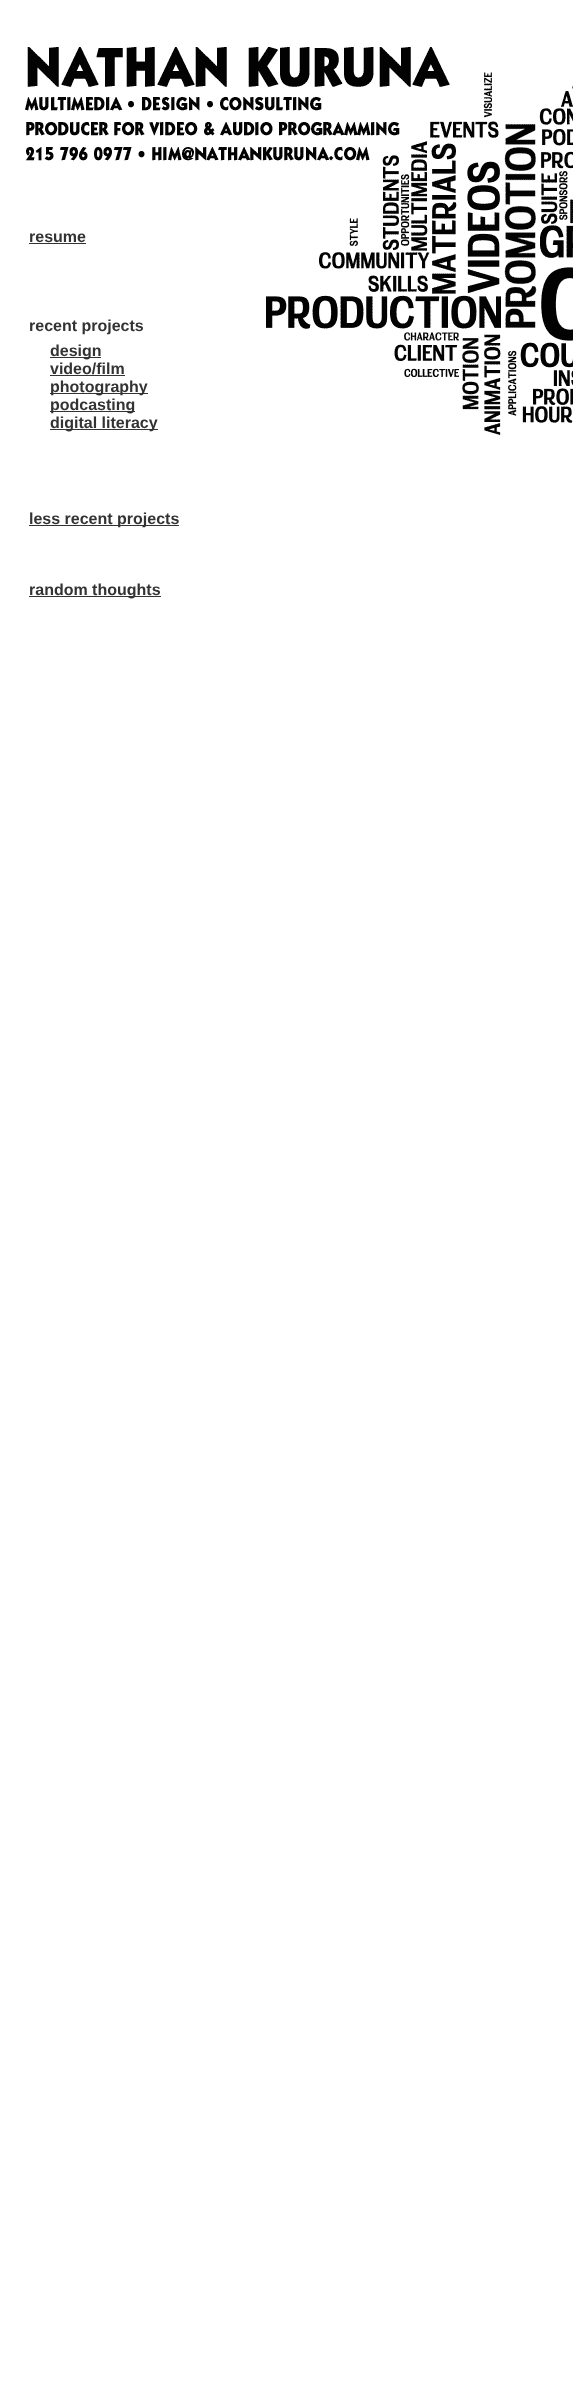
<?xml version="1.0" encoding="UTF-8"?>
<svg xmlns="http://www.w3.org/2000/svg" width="573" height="2381">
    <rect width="100%" height="100%" fill="#FFFFFF"/>
    <image x="25" y="47" width="548" height="388" href="img_01.png"/>
    <text x="29" y="242" font-family="Liberation Sans" font-size="16" font-weight="700" fill="#333333">resume</text>
    <rect x="29" y="243" width="57" height="1" fill="#333333"/>
    <text x="29" y="331" font-family="Liberation Sans" font-size="16" font-weight="700" fill="#333333">recent projects</text>
    <rect x="50" y="357" width="51" height="1" fill="#333333"/>
    <text font-family="Liberation Sans" font-size="16" font-weight="700" fill="#333333">
        <tspan x="50" y="356">design</tspan>
        <tspan x="50" y="374">video/film</tspan>
    </text>
    <rect x="50" y="375" width="75" height="1" fill="#333333"/>
    <rect x="50" y="393" width="98" height="1" fill="#333333"/>
    <text x="50" y="392" font-family="Liberation Sans" font-size="16" font-weight="700" fill="#333333">photography</text>
    <rect x="50" y="411" width="85" height="1" fill="#333333"/>
    <text x="50" y="410" font-family="Liberation Sans" font-size="16" font-weight="700" fill="#333333">podcasting</text>
    <rect x="50" y="429" width="108" height="1" fill="#333333"/>
    <text x="50" y="428" font-family="Liberation Sans" font-size="16" font-weight="700" fill="#333333">digital literacy</text>
    <rect x="29" y="525" width="150" height="1" fill="#333333"/>
    <text x="29" y="524" font-family="Liberation Sans" font-size="16" font-weight="700" fill="#333333">less recent projects</text>
    <rect x="29" y="596" width="132" height="1" fill="#333333"/>
    <text x="29" y="595" font-family="Liberation Sans" font-size="16" font-weight="700" fill="#333333">random thoughts</text>
</svg>
